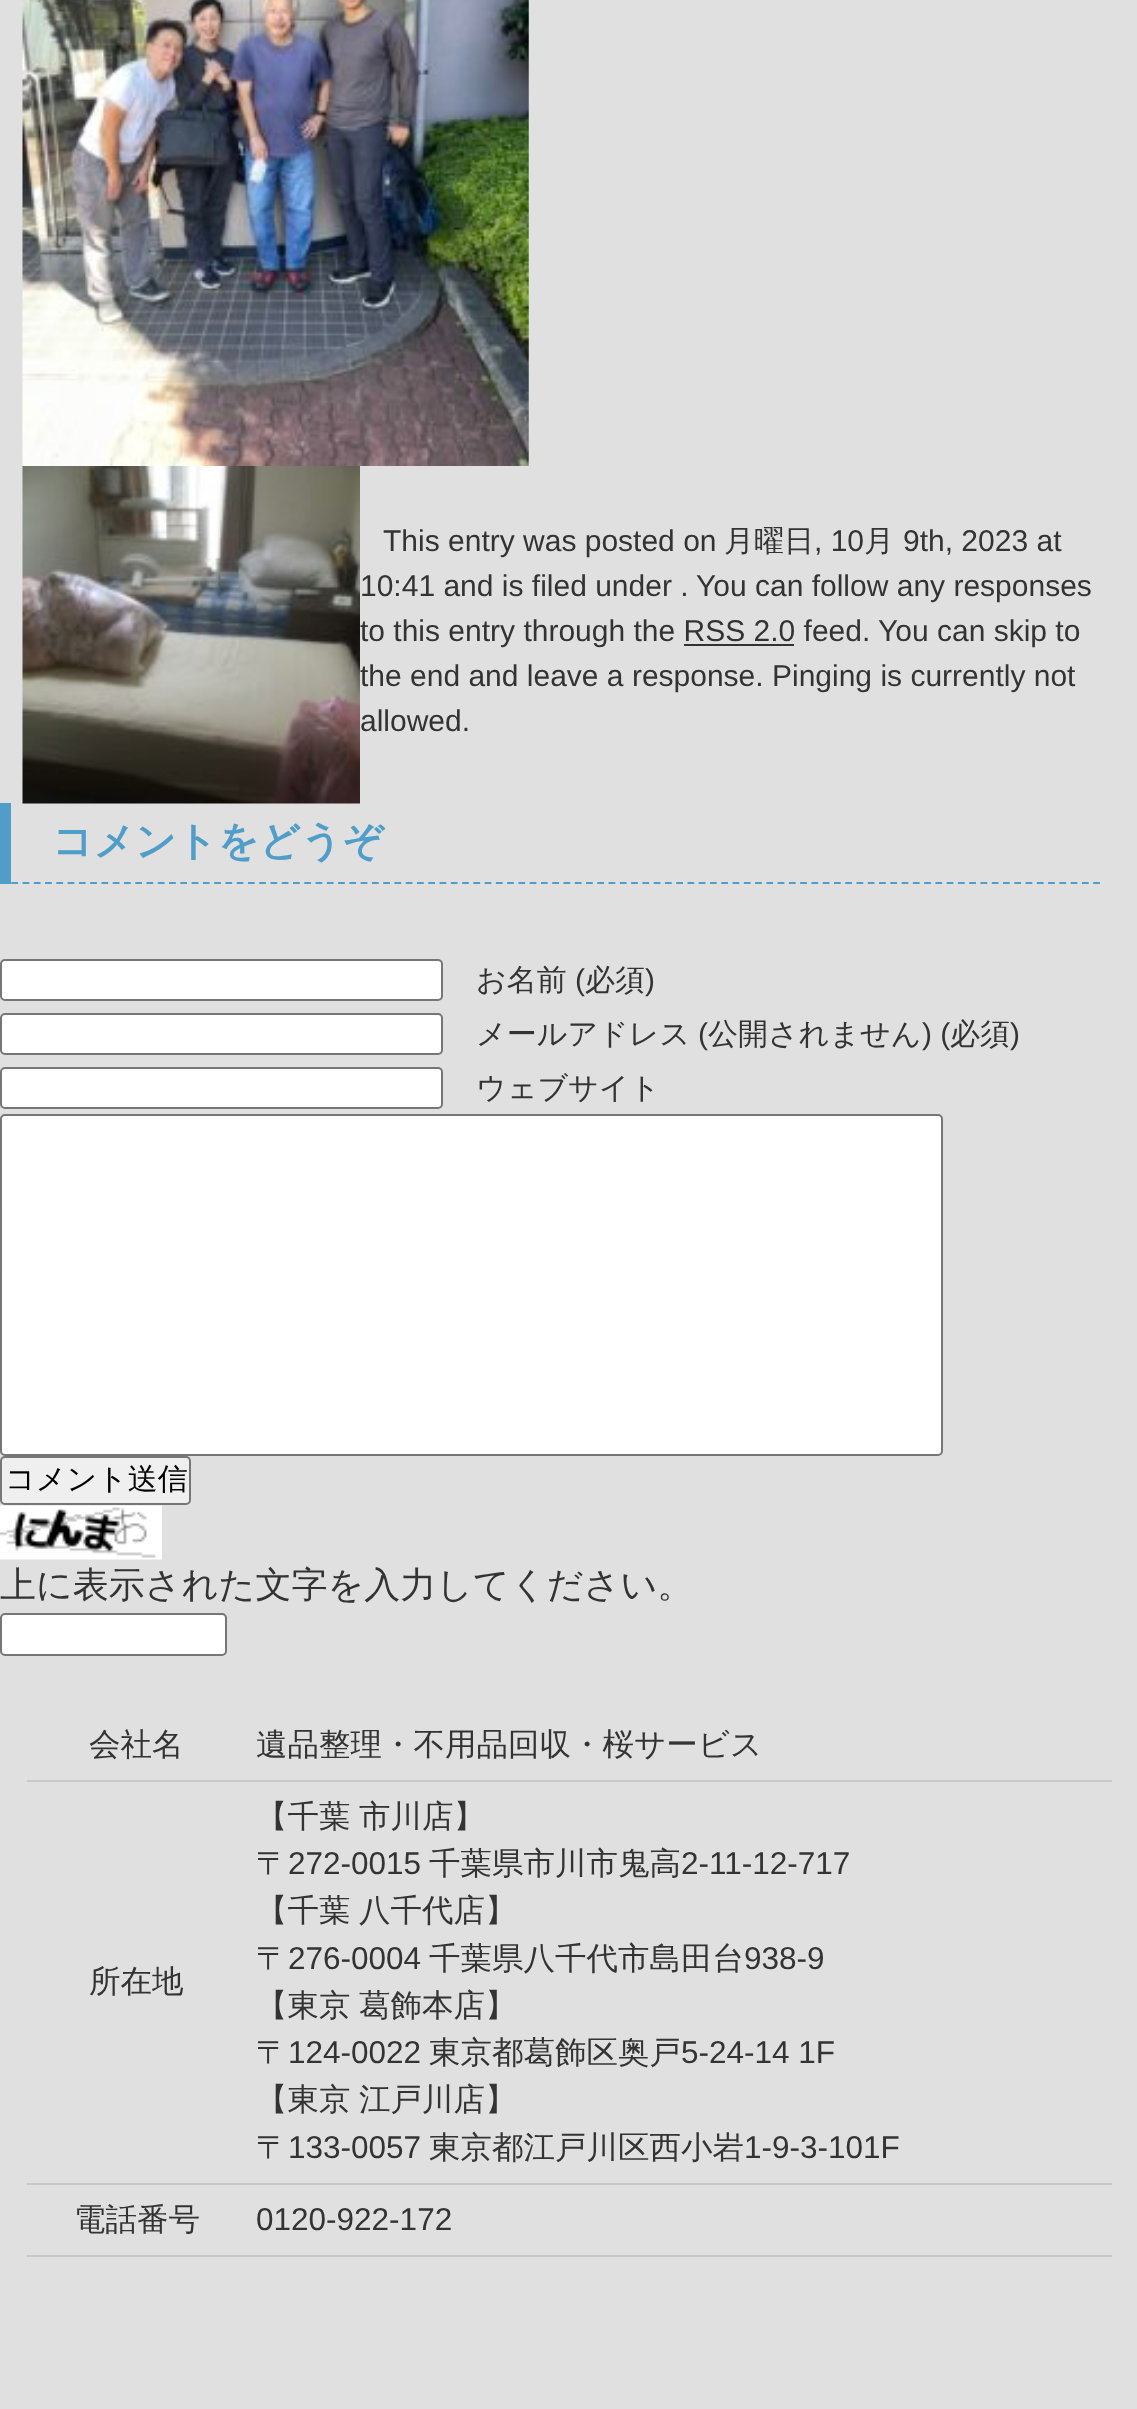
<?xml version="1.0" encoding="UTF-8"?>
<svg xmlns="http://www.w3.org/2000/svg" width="1137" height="2409">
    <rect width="100%" height="100%" fill="#E0E0E0"/>
    <image x="22" y="0" width="507" height="466" href="img_01.png"/>
    <image x="22" y="466" width="338" height="338" href="img_02.png"/>
    <text x="383" y="551" font-family="Liberation Sans" font-size="30" fill="#333333">This entry was posted on</text>
    <text x="724" y="551" font-family="WenQuanYi Zen Hei" font-size="30" font-weight="500" fill="#333333">月曜日</text>
    <text x="814" y="551" font-family="Liberation Sans" font-size="30" fill="#333333">, 10</text>
    <text x="864" y="551" font-family="WenQuanYi Zen Hei" font-size="30" font-weight="500" fill="#333333">月</text>
    <text x="903" y="551" font-family="Liberation Sans" font-size="30" fill="#333333">9th, 2023 at</text>
    <text x="360" y="596" font-family="Liberation Sans" font-size="30" fill="#333333">10:41 and is filed under .</text>
    <text x="696" y="596" font-family="Liberation Sans" font-size="30" fill="#333333">You can follow any responses</text>
    <text x="360" y="641" font-family="Liberation Sans" font-size="30" fill="#333333">to this entry through the RSS 2.0 feed.</text>
    <rect x="684" y="644" width="110" height="2" fill="#333333"/>
    <text x="878" y="641" font-family="Liberation Sans" font-size="30" fill="#333333">You can skip to</text>
    <text font-family="Liberation Sans" font-size="30" fill="#333333">
        <tspan x="360" y="686">the end and leave a response. Pinging is currently not</tspan>
        <tspan x="360" y="731">allowed.</tspan>
    </text>
    <path d="M 0 883 H 1100" fill="none" stroke="#519DC9" stroke-width="2.2" stroke-dasharray="6.75 4.52"/>
    <rect x="0" y="803" width="11" height="81" fill="#519DC9"/>
    <text x="52" y="855" font-family="WenQuanYi Zen Hei" font-size="40.5" font-weight="700" fill="#519DC9">コメントをどうぞ</text>
    <rect x="1" y="960" width="441" height="40" rx="4" fill="#FFFFFF" stroke="#767676" stroke-width="2"/>
    <text x="476" y="990" font-family="WenQuanYi Zen Hei" font-size="30" font-weight="500" fill="#333333">お名前</text>
    <text x="575" y="990" font-family="Liberation Sans" font-size="30" fill="#333333">(</text>
    <text x="585" y="990" font-family="WenQuanYi Zen Hei" font-size="30" font-weight="500" fill="#333333">必須</text>
    <text x="645" y="990" font-family="Liberation Sans" font-size="30" fill="#333333">)</text>
    <rect x="1" y="1014" width="441" height="40" rx="4" fill="#FFFFFF" stroke="#767676" stroke-width="2"/>
    <text x="476" y="1044" font-family="WenQuanYi Zen Hei" font-size="30" font-weight="500" fill="#333333">メールアドレス</text>
    <text x="698" y="1044" font-family="Liberation Sans" font-size="30" fill="#333333">(</text>
    <text x="708" y="1044" font-family="WenQuanYi Zen Hei" font-size="30" font-weight="500" fill="#333333">公開されません</text>
    <text x="922" y="1044" font-family="Liberation Sans" font-size="30" fill="#333333">) (</text>
    <text x="950" y="1044" font-family="WenQuanYi Zen Hei" font-size="30" font-weight="500" fill="#333333">必須</text>
    <text x="1010" y="1044" font-family="Liberation Sans" font-size="30" fill="#333333">)</text>
    <rect x="1" y="1068" width="441" height="40" rx="4" fill="#FFFFFF" stroke="#767676" stroke-width="2"/>
    <text x="476" y="1098" font-family="WenQuanYi Zen Hei" font-size="30" font-weight="500" fill="#333333">ウェブサイト</text>
    <rect x="1" y="1115" width="941" height="340" rx="4" fill="#FFFFFF" stroke="#767676" stroke-width="2"/>
    <rect x="1" y="1457" width="189" height="47" rx="4" fill="#EFEFEF" stroke="#767676" stroke-width="2"/>
    <text x="5" y="1489" font-family="WenQuanYi Zen Hei" font-size="30" font-weight="500" fill="#000000">コメント送信</text>
    <image x="0" y="1505" width="162" height="55" href="img_03.png"/>
    <text x="0" y="1597" font-family="WenQuanYi Zen Hei" font-size="36" font-weight="500" fill="#333333">上に表示された文字を入力してください。</text>
    <rect x="1" y="1614" width="225" height="41" rx="4" fill="#FFFFFF" stroke="#767676" stroke-width="2"/>
    <rect x="27" y="1780" width="1085" height="2" fill="#C9C9C9"/>
    <text x="89" y="1755" font-family="WenQuanYi Zen Hei" font-size="31.5" font-weight="500" fill="#333333">会社名</text>
    <text x="256" y="1755" font-family="WenQuanYi Zen Hei" font-size="31.5" font-weight="500" fill="#333333">遺品整理・不用品回収・桜サービス</text>
    <rect x="27" y="2183" width="1085" height="2" fill="#C9C9C9"/>
    <text x="89" y="1992" font-family="WenQuanYi Zen Hei" font-size="31.5" font-weight="500" fill="#333333">所在地</text>
    <text font-family="WenQuanYi Zen Hei" font-size="31.5" font-weight="500" fill="#333333">
        <tspan x="256" y="1827" word-spacing="-1">【千葉 市川店】</tspan>
        <tspan x="256" y="1874">〒</tspan>
    </text>
    <text x="288" y="1874" font-family="Liberation Sans" font-size="31.5" fill="#333333">272-0015</text>
    <text x="429" y="1874" font-family="WenQuanYi Zen Hei" font-size="31.5" font-weight="500" fill="#333333">千葉県市川市鬼高</text>
    <text x="681" y="1874" font-family="Liberation Sans" font-size="31.5" fill="#333333">2-11-12-717</text>
    <text font-family="WenQuanYi Zen Hei" font-size="31.5" font-weight="500" fill="#333333">
        <tspan x="256" y="1921" word-spacing="-1">【千葉 八千代店】</tspan>
        <tspan x="256" y="1969">〒</tspan>
    </text>
    <text x="288" y="1969" font-family="Liberation Sans" font-size="31.5" fill="#333333">276-0004</text>
    <text x="429" y="1969" font-family="WenQuanYi Zen Hei" font-size="31.5" font-weight="500" fill="#333333">千葉県八千代市島田台</text>
    <text x="744" y="1969" font-family="Liberation Sans" font-size="31.5" fill="#333333">938-9</text>
    <text font-family="WenQuanYi Zen Hei" font-size="31.5" font-weight="500" fill="#333333">
        <tspan x="256" y="2016" word-spacing="-1">【東京 葛飾本店】</tspan>
        <tspan x="256" y="2063">〒</tspan>
    </text>
    <text x="288" y="2063" font-family="Liberation Sans" font-size="31.5" fill="#333333">124-0022</text>
    <text x="429" y="2063" font-family="WenQuanYi Zen Hei" font-size="31.5" font-weight="500" fill="#333333">東京都葛飾区奥戸</text>
    <text x="681" y="2063" font-family="Liberation Sans" font-size="31.5" fill="#333333">5-24-14 1F</text>
    <text font-family="WenQuanYi Zen Hei" font-size="31.5" font-weight="500" fill="#333333">
        <tspan x="256" y="2110" word-spacing="-1">【東京 江戸川店】</tspan>
        <tspan x="256" y="2158">〒</tspan>
    </text>
    <text x="288" y="2158" font-family="Liberation Sans" font-size="31.5" fill="#333333">133-0057</text>
    <text x="429" y="2158" font-family="WenQuanYi Zen Hei" font-size="31.5" font-weight="500" fill="#333333">東京都江戸川区西小岩</text>
    <text x="744" y="2158" font-family="Liberation Sans" font-size="31.5" fill="#333333">1-9-3-101F</text>
    <rect x="27" y="2255" width="1085" height="2" fill="#C9C9C9"/>
    <text x="74" y="2230" font-family="WenQuanYi Zen Hei" font-size="31.5" font-weight="500" fill="#333333">電話番号</text>
    <text x="256" y="2230" font-family="Liberation Sans" font-size="31.5" fill="#333333">0120-922-172</text>
</svg>
